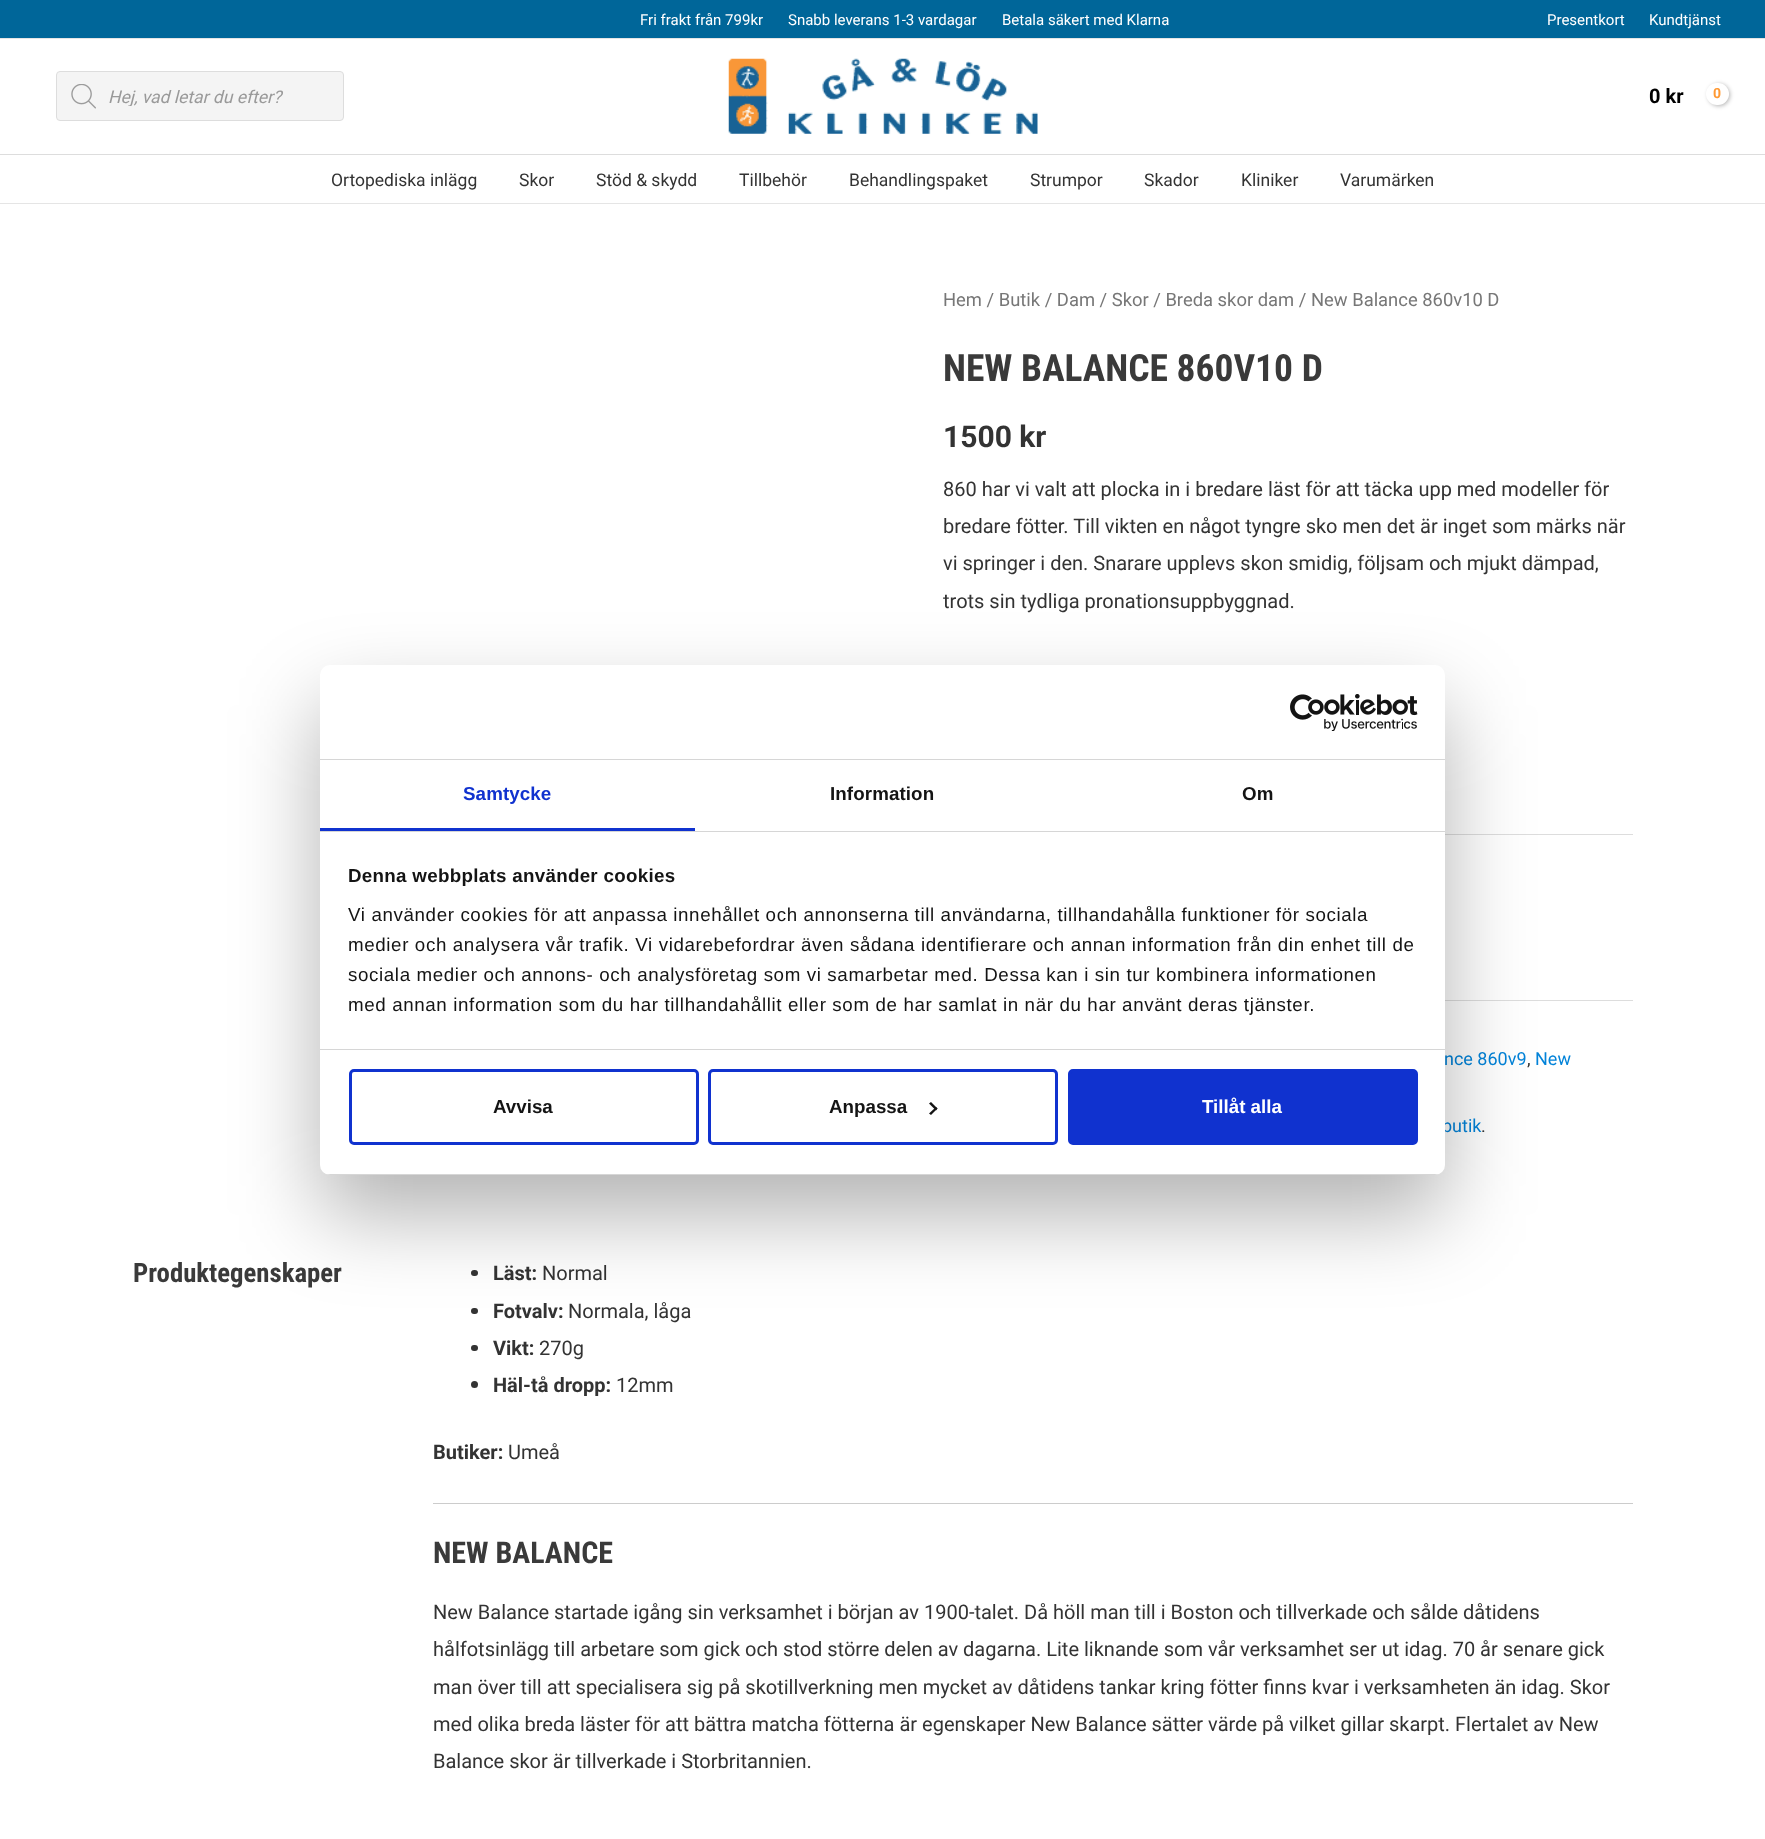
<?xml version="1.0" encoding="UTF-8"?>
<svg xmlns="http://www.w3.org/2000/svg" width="1765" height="1839">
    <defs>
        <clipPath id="clip1"><rect x="108" y="86" width="216" height="20"/></clipPath>
        <filter id="blur1" x="-50%" y="-200%" width="200%" height="500%"><feGaussianBlur stdDeviation="2"/></filter>
        <filter id="blur2" x="-50%" y="-200%" width="200%" height="500%"><feGaussianBlur stdDeviation="42.5"/></filter>
        <clipPath id="clip2"><rect x="320" y="665" width="1125" height="510" rx="10"/></clipPath>
    </defs>
    <rect width="100%" height="100%" fill="#FFFFFF"/>
    <rect x="0" y="0" width="1765" height="38" fill="#006699"/>
    <rect x="0" y="38" width="1765" height="1" fill="#E5E5E5"/>
    <text x="640" y="25" font-family="Roboto" font-size="15" fill="#FFFFFF">Fri frakt från 799kr</text>
    <text x="788" y="25" font-family="Roboto" font-size="15" fill="#FFFFFF">Snabb leverans 1-3 vardagar</text>
    <text x="1002" y="25" font-family="Roboto" font-size="15" fill="#FFFFFF">Betala säkert med Klarna</text>
    <text x="1547" y="25" font-family="Roboto" font-size="15" fill="#FFFFFF">Presentkort</text>
    <text x="1649" y="25" font-family="Roboto" font-size="15" fill="#FFFFFF">Kundtjänst</text>
    <rect x="0" y="154" width="1765" height="1" fill="#DDDDDD"/>
    <rect x="56.5" y="71.5" width="287" height="49" rx="3.5" fill="#F4F4F4" stroke="#DDDDDD"/>
    <image x="71" y="84" width="25" height="25" href="img_01.png"/>
    <g clip-path="url(#clip1)">
        <text x="108" y="103" font-family="Roboto" font-size="17.5" font-style="italic" fill="#999999">Hej, vad letar du efter?</text>
    </g>
    <image x="728" y="58" width="310" height="76" href="img_02.png"/>
    <text x="1649" y="103" font-family="Roboto" font-size="20" font-weight="700" fill="#000000">0 kr</text>
    <rect x="1708" y="84" width="22" height="22" rx="11" fill="#000000" fill-opacity="0.3" filter="url(#blur1)"/>
    <rect x="1706" y="83" width="23" height="22" rx="11" fill="#FFFFFF"/>
    <text x="1713" y="98" font-family="Roboto" font-size="14" font-weight="700" letter-spacing="-1" fill="#FF9933">0</text>
    <rect x="0" y="203" width="1765" height="1" fill="#E5E5E5"/>
    <text x="331" y="186" font-family="Roboto" font-size="17.5" fill="#333333">Ortopediska inlägg</text>
    <text x="519" y="186" font-family="Roboto" font-size="17.5" fill="#333333">Skor</text>
    <text x="596" y="186" font-family="Roboto" font-size="17.5" fill="#333333">Stöd &amp; skydd</text>
    <text x="739" y="186" font-family="Roboto" font-size="17.5" fill="#333333">Tillbehör</text>
    <text x="849" y="186" font-family="Roboto" font-size="17.5" fill="#333333">Behandlingspaket</text>
    <text x="1030" y="186" font-family="Roboto" font-size="17.5" fill="#333333">Strumpor</text>
    <text x="1144" y="186" font-family="Roboto" font-size="17.5" fill="#333333">Skador</text>
    <text x="1241" y="186" font-family="Roboto" font-size="17.5" fill="#333333">Kliniker</text>
    <text x="1340" y="186" font-family="Roboto" font-size="17.5" fill="#333333">Varumärken</text>
    <text x="943" y="306" font-family="Roboto" font-size="18.4" fill="#777777">Hem / Butik / Dam / Skor / Breda skor dam / New Balance 860v10 D</text>
    <text x="943" y="381" font-family="Roboto Condensed" font-size="37.5" font-weight="700" fill="#3A3A3A">NEW BALANCE 860V10 D</text>
    <text x="943" y="447" font-family="Roboto" font-size="30" font-weight="700" fill="#333333">1500 kr</text>
    <text font-family="Roboto" font-size="20" fill="#333333">
        <tspan x="943" y="496">860 har vi valt att plocka in i bredare läst för att täcka upp med modeller för</tspan>
        <tspan x="943" y="533">bredare fötter. Till vikten en något tyngre sko men det är inget som märks när</tspan>
        <tspan x="943" y="570">vi springer i den. Snarare upplevs skon smidig, följsam och mjukt dämpad,</tspan>
        <tspan x="943" y="608">trots sin tydliga pronationsuppbyggnad.</tspan>
    </text>
    <rect x="1445" y="834" width="188" height="1" fill="#DDDDDD"/>
    <rect x="1445" y="1000" width="188" height="1" fill="#DDDDDD"/>
    <text x="1444" y="1065" font-family="Roboto" font-size="18" fill="#0283D9">nce 860v9</text>
    <text x="1527" y="1065" font-family="Roboto" font-size="18" fill="#333333">,</text>
    <text x="1535" y="1065" font-family="Roboto" font-size="18" fill="#0283D9">New</text>
    <text x="1442" y="1132" font-family="Roboto" font-size="18" fill="#0283D9">butik</text>
    <text x="1481" y="1132" font-family="Roboto" font-size="18" fill="#333333">.</text>
    <text x="133" y="1282" font-family="Roboto Condensed" font-size="26.75" font-weight="700" fill="#3A3A3A">Produktegenskaper</text>
    <rect x="471" y="1270" width="7" height="6" rx="3" fill="#333333"/>
    <text x="493" y="1280" font-family="Roboto" font-size="20" font-weight="700" fill="#333333">Läst:</text>
    <text x="542" y="1280" font-family="Roboto" font-size="20" fill="#333333">Normal</text>
    <rect x="471" y="1308" width="7" height="6" rx="3" fill="#333333"/>
    <text x="493" y="1318" font-family="Roboto" font-size="20" font-weight="700" fill="#333333">Fotvalv:</text>
    <text x="568" y="1318" font-family="Roboto" font-size="20" fill="#333333">Normala, låga</text>
    <rect x="471" y="1345" width="7" height="6" rx="3" fill="#333333"/>
    <text x="493" y="1355" font-family="Roboto" font-size="20" font-weight="700" fill="#333333">Vikt:</text>
    <text x="539" y="1355" font-family="Roboto" font-size="20" fill="#333333">270g</text>
    <circle cx="474.5" cy="1384.5" r="3.5" fill="#333333"/>
    <text x="493" y="1392" font-family="Roboto" font-size="20" font-weight="700" fill="#333333">Häl-tå dropp:</text>
    <text x="616" y="1392" font-family="Roboto" font-size="20" fill="#333333">12mm</text>
    <text x="433" y="1459" font-family="Roboto" font-size="20" font-weight="700" fill="#333333">Butiker:</text>
    <text x="508" y="1459" font-family="Roboto" font-size="20" fill="#333333">Umeå</text>
    <rect x="433" y="1503" width="1200" height="1" fill="#CCCCCC"/>
    <text x="433" y="1563" font-family="Roboto Condensed" font-size="30" font-weight="700" fill="#3A3A3A">NEW BALANCE</text>
    <text font-family="Roboto" font-size="20" fill="#333333">
        <tspan x="433" y="1619">New Balance startade igång sin verksamhet i början av 1900-talet. Då höll man till i Boston och tillverkade och sålde dåtidens</tspan>
        <tspan x="433" y="1656">hålfotsinlägg till arbetare som gick och stod större delen av dagarna. Lite liknande som vår verksamhet ser ut idag. 70 år senare gick</tspan>
        <tspan x="433" y="1694">man över till att specialisera sig på skotillverkning men mycket av dåtidens tankar kring fötter finns kvar i verksamheten än idag. Skor</tspan>
        <tspan x="433" y="1731">med olika breda läster för att bättra matcha fötterna är egenskaper New Balance sätter värde på vilket gillar skarpt. Flertalet av New</tspan>
        <tspan x="433" y="1768">Balance skor är tillverkade i Storbritannien.</tspan>
    </text>
    <rect x="320" y="705" width="1125" height="510" rx="10" fill="#000000" fill-opacity="0.3" filter="url(#blur2)"/>
    <rect x="320" y="665" width="1125" height="510" rx="10" fill="#FFFFFF"/>
    <rect x="320" y="759" width="1125" height="1" fill="#D6D6D6"/>
    <image x="1290" y="694" width="128" height="37" href="img_03.png"/>
    <rect x="320" y="831" width="1125" height="1" fill="#D6D6D6"/>
    <rect x="320" y="828" width="375" height="3" fill="#1032CF"/>
    <text x="463" y="800" font-family="Liberation Sans" font-size="18.75" font-weight="700" letter-spacing="0.1" fill="#1032CF">Samtycke</text>
    <text x="830" y="800" font-family="Liberation Sans" font-size="18.75" font-weight="700" letter-spacing="0.1" fill="#141414">Information</text>
    <text x="1242" y="800" font-family="Liberation Sans" font-size="18.75" font-weight="700" letter-spacing="0.1" fill="#141414">Om</text>
    <rect x="320" y="1049" width="1125" height="1" fill="#D6D6D6"/>
    <text x="348" y="882" font-family="Liberation Sans" font-size="18.75" font-weight="700" letter-spacing="0.3" fill="#141414">Denna webbplats använder cookies</text>
    <text font-family="Liberation Sans" font-size="18.75" letter-spacing="0.62" fill="#141414">
        <tspan x="348" y="921">Vi använder cookies för att anpassa innehållet och annonserna till användarna, tillhandahålla funktioner för sociala</tspan>
        <tspan x="348" y="951">medier och analysera vår trafik. Vi vidarebefordrar även sådana identifierare och annan information från din enhet till de</tspan>
        <tspan x="348" y="981">sociala medier och annons- och analysföretag som vi samarbetar med. Dessa kan i sin tur kombinera informationen</tspan>
        <tspan x="348" y="1011">med annan information som du har tillhandahållit eller som de har samlat in när du har använt deras tjänster.</tspan>
    </text>
    <g clip-path="url(#clip2)">
        <rect x="320" y="1174" width="1125" height="1" fill="#D6D6D6"/>
    </g>
    <rect x="350.5" y="1070.5" width="347" height="73" rx="3.5" fill="none" stroke="#1032CF" stroke-width="3"/>
    <text x="493" y="1113" font-family="Liberation Sans" font-size="18.75" font-weight="700" fill="#141414">Avvisa</text>
    <rect x="709.5" y="1070.5" width="347" height="73" rx="3.5" fill="none" stroke="#1032CF" stroke-width="3"/>
    <text x="829" y="1113" font-family="Liberation Sans" font-size="18.75" font-weight="700" fill="#141414">Anpassa</text>
    <path d="M 931 1102 L 937.5 1108.5 L 936 1110.5 L 929 1103.5 Z" fill="#141414"/>
    <path d="M 936 1107 L 937.5 1108.5 L 931 1115 L 929 1113.5 Z" fill="#141414"/>
    <rect x="1069.5" y="1070.5" width="347" height="73" rx="3.5" fill="#1032CF" stroke="#1032CF" stroke-width="3"/>
    <text x="1202" y="1113" font-family="Liberation Sans" font-size="18.75" font-weight="700" fill="#FFFFFF">Tillåt alla</text>
</svg>
